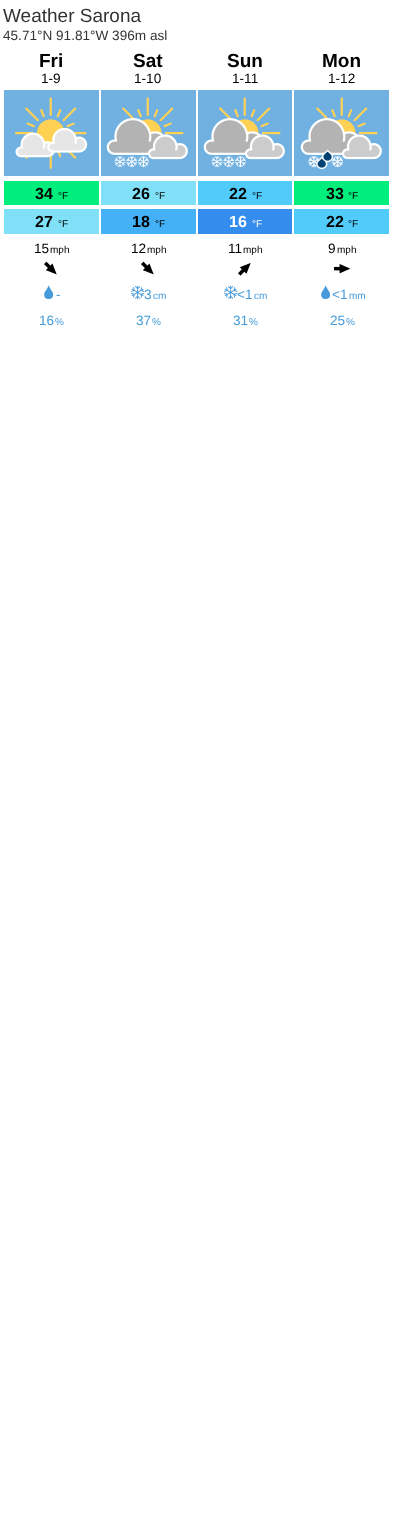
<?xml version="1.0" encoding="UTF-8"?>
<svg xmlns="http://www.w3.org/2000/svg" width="393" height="1533">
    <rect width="100%" height="100%" fill="#FFFFFF"/>
    <text x="3" y="22" font-family="Liberation Sans" font-size="19" fill="#333333">Weather Sarona</text>
    <text x="3" y="40" font-family="Liberation Sans" font-size="13.6" fill="#333333">45.71°N 91.81°W 396m asl</text>
    <text x="39" y="67" font-family="Liberation Sans" font-size="19" font-weight="700" fill="#000000">Fri</text>
    <text x="41" y="83" font-family="Liberation Sans" font-size="13.6" fill="#000000">1-9</text>
    <rect x="4" y="90" width="95" height="86" fill="#70B1E2"/>
    <image x="15" y="97" width="73" height="72" href="img_01.png"/>
    <rect x="4" y="181" width="95" height="24" fill="#00EF7C"/>
    <text x="35" y="199" font-family="Liberation Sans" font-size="16" font-weight="700" fill="#000000">34</text>
    <text x="58" y="199" font-family="Liberation Sans" font-size="10" fill="#000000">°F</text>
    <rect x="4" y="209" width="95" height="25" fill="#80E0F7"/>
    <text x="35" y="227" font-family="Liberation Sans" font-size="16" font-weight="700" fill="#000000">27</text>
    <text x="58" y="227" font-family="Liberation Sans" font-size="10" fill="#000000">°F</text>
    <text x="34" y="253" font-family="Liberation Sans" font-size="13.6" fill="#000000">15</text>
    <text x="50" y="253" font-family="Liberation Sans" font-size="10" fill="#000000">mph</text>
    <image x="44" y="261" width="13" height="14" href="img_02.png"/>
    <image x="44" y="285" width="10" height="14" href="img_03.png"/>
    <text x="56" y="299" font-family="Liberation Sans" font-size="13.6" fill="#469AD9">-</text>
    <text x="39" y="325" font-family="Liberation Sans" font-size="13.6" fill="#469AD9">16</text>
    <text x="55" y="325" font-family="Liberation Sans" font-size="10" fill="#469AD9">%</text>
    <text x="133" y="67" font-family="Liberation Sans" font-size="19" font-weight="700" fill="#000000">Sat</text>
    <text x="134" y="83" font-family="Liberation Sans" font-size="13.6" fill="#000000">1-10</text>
    <rect x="101" y="90" width="95" height="86" fill="#70B1E2"/>
    <image x="106" y="97" width="82" height="71" href="img_04.png"/>
    <rect x="101" y="181" width="95" height="24" fill="#80E0F7"/>
    <text x="132" y="199" font-family="Liberation Sans" font-size="16" font-weight="700" fill="#000000">26</text>
    <text x="155" y="199" font-family="Liberation Sans" font-size="10" fill="#000000">°F</text>
    <rect x="101" y="209" width="95" height="25" fill="#44B1F6"/>
    <text x="132" y="227" font-family="Liberation Sans" font-size="16" font-weight="700" fill="#000000">18</text>
    <text x="155" y="227" font-family="Liberation Sans" font-size="10" fill="#000000">°F</text>
    <text x="131" y="253" font-family="Liberation Sans" font-size="13.6" fill="#000000">12</text>
    <text x="147" y="253" font-family="Liberation Sans" font-size="10" fill="#000000">mph</text>
    <image x="141" y="261" width="13" height="14" href="img_02.png"/>
    <text x="144" y="299" font-family="Liberation Sans" font-size="13.6" fill="#469AD9">3</text>
    <image x="131" y="285" width="14" height="14" href="img_05.png"/>
    <text x="153" y="299" font-family="Liberation Sans" font-size="10" fill="#469AD9">cm</text>
    <text x="136" y="325" font-family="Liberation Sans" font-size="13.6" fill="#469AD9">37</text>
    <text x="152" y="325" font-family="Liberation Sans" font-size="10" fill="#469AD9">%</text>
    <text x="227" y="67" font-family="Liberation Sans" font-size="19" font-weight="700" fill="#000000">Sun</text>
    <text x="232" y="83" font-family="Liberation Sans" font-size="13.6" fill="#000000">1-11</text>
    <rect x="198" y="90" width="94" height="86" fill="#70B1E2"/>
    <image x="203" y="97" width="82" height="71" href="img_04.png"/>
    <rect x="198" y="181" width="94" height="24" fill="#51CBFA"/>
    <text x="229" y="199" font-family="Liberation Sans" font-size="16" font-weight="700" fill="#000000">22</text>
    <text x="252" y="199" font-family="Liberation Sans" font-size="10" fill="#000000">°F</text>
    <rect x="198" y="209" width="94" height="25" fill="#348CED"/>
    <text x="229" y="227" font-family="Liberation Sans" font-size="16" font-weight="700" fill="#FFFFFF">16</text>
    <text x="252" y="227" font-family="Liberation Sans" font-size="10" fill="#FFFFFF">°F</text>
    <text x="228" y="253" font-family="Liberation Sans" font-size="13.6" fill="#000000">11</text>
    <text x="243" y="253" font-family="Liberation Sans" font-size="10" fill="#000000">mph</text>
    <image x="238" y="263" width="13" height="13" href="img_06.png"/>
    <text x="237" y="299" font-family="Liberation Sans" font-size="13.6" fill="#469AD9">&lt;1</text>
    <image x="224" y="285" width="14" height="14" href="img_07.png"/>
    <text x="254" y="299" font-family="Liberation Sans" font-size="10" fill="#469AD9">cm</text>
    <text x="233" y="325" font-family="Liberation Sans" font-size="13.6" fill="#469AD9">31</text>
    <text x="249" y="325" font-family="Liberation Sans" font-size="10" fill="#469AD9">%</text>
    <text x="322" y="67" font-family="Liberation Sans" font-size="19" font-weight="700" fill="#000000">Mon</text>
    <text x="328" y="83" font-family="Liberation Sans" font-size="13.6" fill="#000000">1-12</text>
    <rect x="294" y="90" width="95" height="86" fill="#70B1E2"/>
    <image x="300" y="97" width="82" height="73" href="img_08.png"/>
    <rect x="294" y="181" width="95" height="24" fill="#00EF7C"/>
    <text x="326" y="199" font-family="Liberation Sans" font-size="16" font-weight="700" fill="#000000">33</text>
    <text x="348" y="199" font-family="Liberation Sans" font-size="10" fill="#000000">°F</text>
    <rect x="294" y="209" width="95" height="25" fill="#51CBFA"/>
    <text x="326" y="227" font-family="Liberation Sans" font-size="16" font-weight="700" fill="#000000">22</text>
    <text x="348" y="227" font-family="Liberation Sans" font-size="10" fill="#000000">°F</text>
    <text x="328" y="253" font-family="Liberation Sans" font-size="13.6" fill="#000000">9</text>
    <text x="337" y="253" font-family="Liberation Sans" font-size="10" fill="#000000">mph</text>
    <image x="334" y="264" width="17" height="10" href="img_09.png"/>
    <image x="321" y="285" width="10" height="14" href="img_03.png"/>
    <text x="332" y="299" font-family="Liberation Sans" font-size="13.6" fill="#469AD9">&lt;1</text>
    <text x="349" y="299" font-family="Liberation Sans" font-size="10" fill="#469AD9">mm</text>
    <text x="330" y="325" font-family="Liberation Sans" font-size="13.6" fill="#469AD9">25</text>
    <text x="346" y="325" font-family="Liberation Sans" font-size="10" fill="#469AD9">%</text>
</svg>
